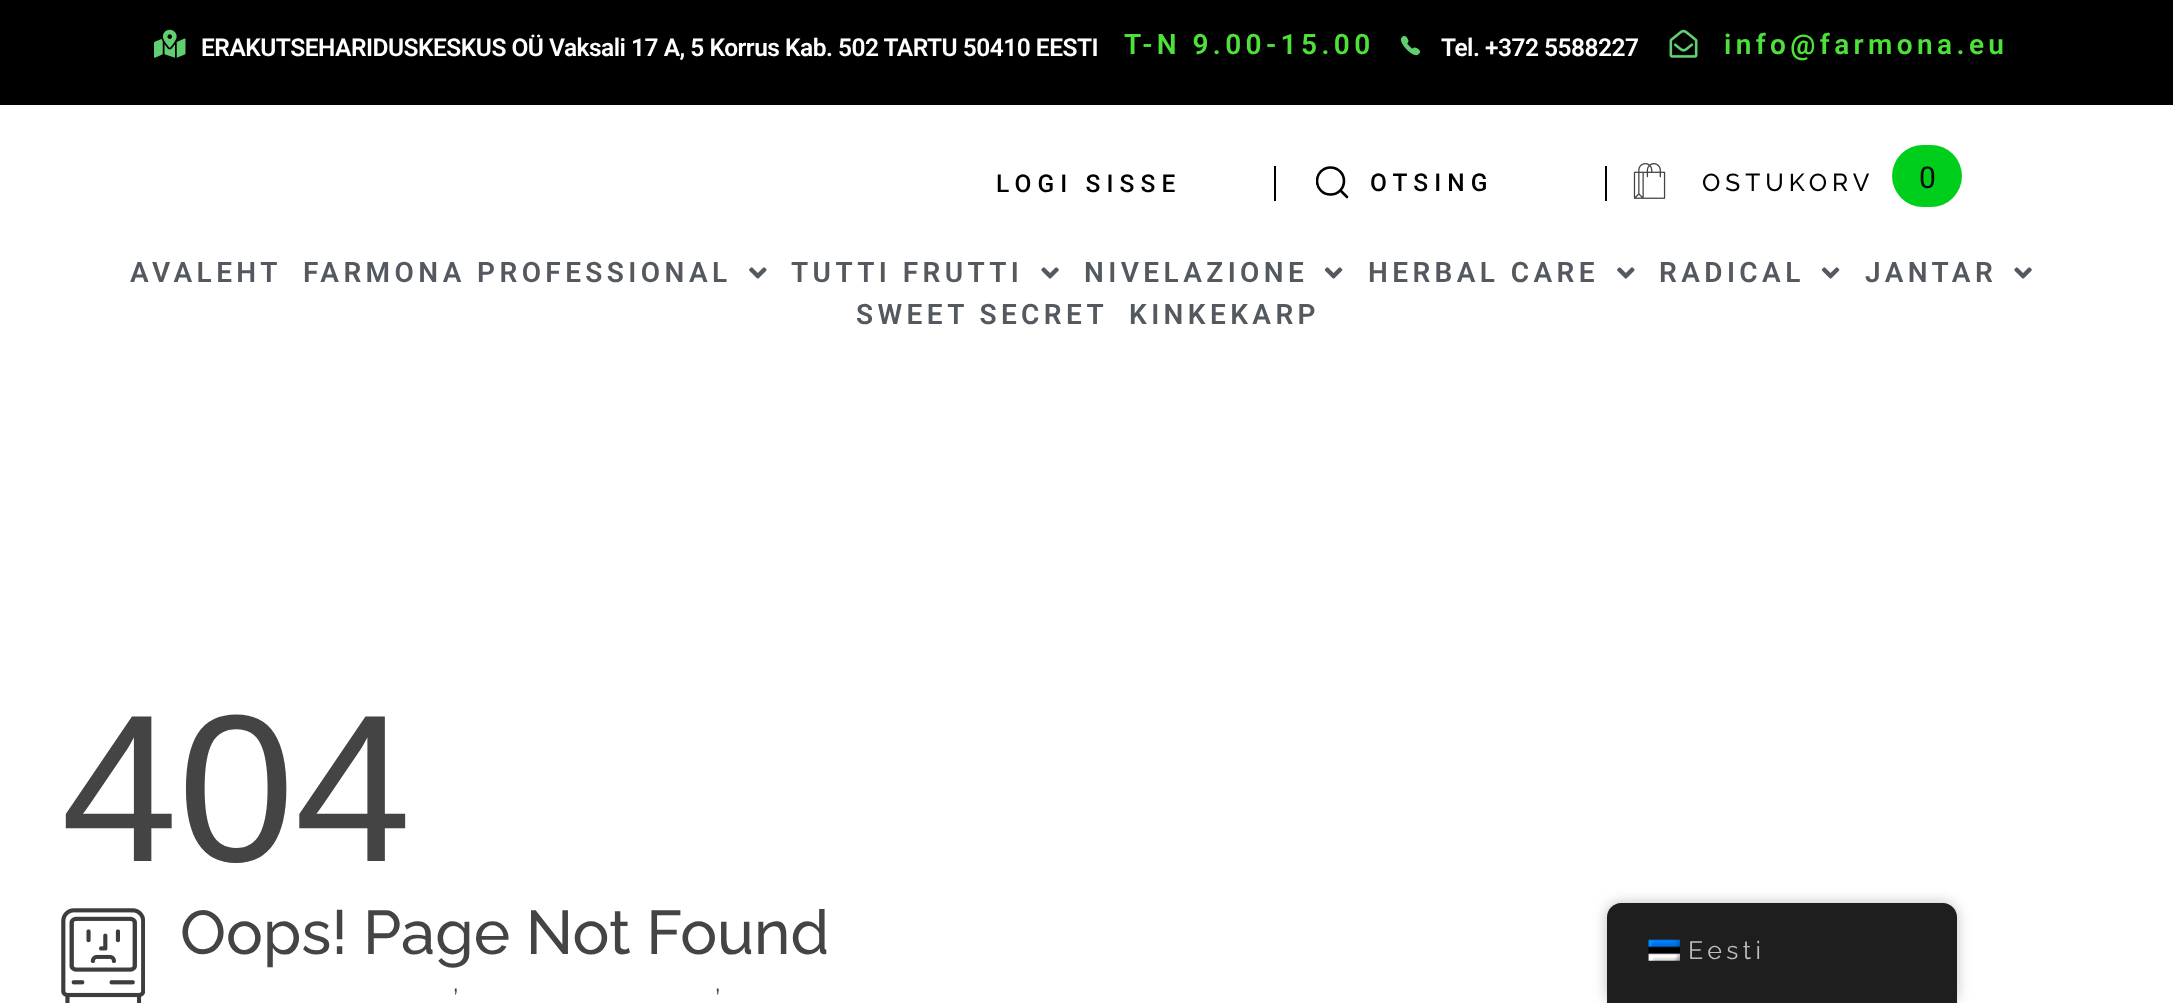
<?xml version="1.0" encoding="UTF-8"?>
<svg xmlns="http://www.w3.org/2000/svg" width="2173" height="1003">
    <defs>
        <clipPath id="clip1"><rect x="1316" y="166" width="33" height="34"/></clipPath>
        <filter id="blur1" x="-50%" y="-200%" width="200%" height="500%"><feGaussianBlur stdDeviation="7"/></filter>
    </defs>
    <rect width="100%" height="100%" fill="#FFFFFF"/>
    <rect x="0" y="0" width="2173" height="105" fill="#000000"/>
    <image x="154" y="29" width="32" height="29" href="img_01.png"/>
    <text x="201" y="56" font-family="Roboto" font-size="24.5" font-weight="600" letter-spacing="-0.5" fill="#FFFDFD">ERAKUTSEHARIDUSKESKUS OÜ Vaksali 17 A, 5 Korrus Kab. 502 TARTU 50410 EESTI</text>
    <text x="1124" y="54" font-family="Roboto" font-size="28" font-weight="600" letter-spacing="4.4" fill="#4EE13A">T-N 9.00-15.00</text>
    <image x="1400" y="35" width="21" height="21" href="img_02.png"/>
    <text x="1441" y="56" font-family="Roboto" font-size="24.5" font-weight="600" letter-spacing="-0.5" fill="#FFFDFD">Tel. +372 5588227</text>
    <image x="1669" y="29" width="29" height="29" href="img_03.png"/>
    <text x="1724" y="54" font-family="Roboto" font-size="28" font-weight="600" letter-spacing="4.4" fill="#4EE13A">info@farmona.eu</text>
    <text x="996" y="192" font-family="Roboto" font-size="24.5" font-weight="500" letter-spacing="6.1" fill="#000000">LOGI SISSE</text>
    <rect x="1605" y="166" width="2" height="35" fill="#000000"/>
    <rect x="1274" y="166" width="2" height="35" fill="#000000"/>
    <g clip-path="url(#clip1)">
        <circle cx="1330.5" cy="181" r="13.5" fill="none" stroke="#000000" stroke-width="2.6"/>
    </g>
    <path d="M 1341 191 L 1347 197" fill="none" stroke="#000000" stroke-width="2.6" stroke-linecap="round"/>
    <text x="1370" y="191" font-family="Roboto" font-size="24.5" font-weight="500" letter-spacing="6.1" fill="#000000">OTSING</text>
    <text x="1702" y="191" font-family="Raleway" font-size="24.5" font-weight="500" letter-spacing="5" fill="#000000">OSTUKORV</text>
    <image x="1633" y="163" width="33" height="36" href="img_04.png"/>
    <rect x="1892" y="145" width="70" height="62" rx="31" fill="#00CE1D"/>
    <text x="1919" y="188" font-family="Roboto" font-size="30" letter-spacing="4.4" fill="#0A0909">0</text>
    <text x="130" y="282" font-family="Roboto" font-size="28" font-weight="600" letter-spacing="4.4" fill="#54595F">AVALEHT</text>
    <text x="303" y="282" font-family="Roboto" font-size="28" font-weight="600" letter-spacing="4.4" fill="#54595F">FARMONA PROFESSIONAL</text>
    <image x="749" y="267" width="18" height="12" href="img_05.png"/>
    <text x="791" y="282" font-family="Roboto" font-size="28" font-weight="600" letter-spacing="4.4" fill="#54595F">TUTTI FRUTTI</text>
    <image x="1041" y="267" width="18" height="12" href="img_06.png"/>
    <text x="1084" y="282" font-family="Roboto" font-size="28" font-weight="600" letter-spacing="4.4" fill="#54595F">NIVELAZIONE</text>
    <image x="1324" y="267" width="19" height="12" href="img_07.png"/>
    <text x="1368" y="282" font-family="Roboto" font-size="28" font-weight="600" letter-spacing="4.4" fill="#54595F">HERBAL CARE</text>
    <image x="1617" y="267" width="18" height="12" href="img_05.png"/>
    <text x="1659" y="282" font-family="Roboto" font-size="28" font-weight="600" letter-spacing="4.4" fill="#54595F">RADICAL</text>
    <image x="1821" y="267" width="19" height="12" href="img_07.png"/>
    <text x="1865" y="282" font-family="Roboto" font-size="28" font-weight="600" letter-spacing="4.4" fill="#54595F">JANTAR</text>
    <image x="2014" y="267" width="18" height="12" href="img_06.png"/>
    <text x="856" y="324" font-family="Roboto" font-size="28" font-weight="600" letter-spacing="4.4" fill="#54595F">SWEET SECRET</text>
    <text x="1129" y="324" font-family="Roboto" font-size="28" font-weight="600" letter-spacing="4.4" fill="#54595F">KINKEKARP</text>
    <text x="61" y="861" font-family="Liberation Sans" font-size="210" fill="#444444">404</text>
    <image x="61" y="908" width="84" height="95" href="img_08.png"/>
    <text x="180" y="954" font-family="Raleway" font-size="61.6" font-weight="500" fill="#444444">Oops! Page Not Found</text>
    <text x="453" y="1009" font-family="Raleway" font-size="28" letter-spacing="4.4" fill="#444444">’</text>
    <text x="715" y="1009" font-family="Raleway" font-size="28" letter-spacing="4.4" fill="#444444">’</text>
    <rect x="1607" y="903" width="350" height="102" rx="14" fill="#000000" fill-opacity="0.25" filter="url(#blur1)"/>
    <path d="M 1621 903 H 1943 C 1950.5 903 1957 909.5 1957 917 V 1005 H 1607 V 917 C 1607 909.5 1613.5 903 1621 903 Z" fill="#1E1E1E"/>
    <image x="1648" y="939" width="32" height="22" href="img_09.png"/>
    <text x="1688" y="959" font-family="Raleway" font-size="25" letter-spacing="4.4" fill="#BDBDBD">Eesti</text>
</svg>
